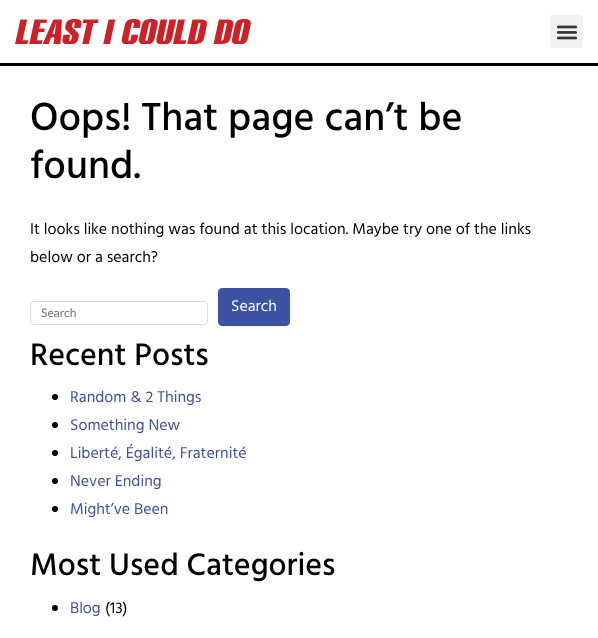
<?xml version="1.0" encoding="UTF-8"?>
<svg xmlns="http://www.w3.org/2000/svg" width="598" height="638">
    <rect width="100%" height="100%" fill="#FFFFFF"/>
    <rect x="0" y="63" width="598" height="3" fill="#000000"/>
    <image x="15" y="19" width="236" height="25" href="img_01.png"/>
    <rect x="550" y="15" width="33" height="33" rx="3" fill="#F2F2F2"/>
    <image x="556" y="25" width="22" height="15" href="img_02.png"/>
    <text font-family="Hind" font-size="40" font-weight="500" fill="#000000">
        <tspan x="30" y="130">Oops! That page can’t be</tspan>
        <tspan x="30" y="178">found.</tspan>
    </text>
    <text font-family="Hind" font-size="16" fill="#000000">
        <tspan x="30" y="234">It looks like nothing was found at this location. Maybe try one of the links</tspan>
        <tspan x="30" y="262">below or a search?</tspan>
    </text>
    <rect x="218.5" y="288.5" width="71" height="37" rx="3.5" fill="#3C53A4" stroke="#3C53A4"/>
    <text x="231" y="311" font-family="Hind" font-size="16" fill="#FFFFFF">Search</text>
    <rect x="30.5" y="301.5" width="177" height="23" rx="3.5" fill="none" stroke="#DDDDDD"/>
    <text x="41" y="317" font-family="Lato" font-size="12" fill="#6C757D">Search</text>
    <text x="30" y="365" font-family="Hind" font-size="32" font-weight="500" fill="#000000">Recent Posts</text>
    <circle cx="55" cy="397" r="3" fill="#000000"/>
    <text x="70" y="402" font-family="Hind" font-size="16" fill="#3C53A4">Random &amp; 2 Things</text>
    <circle cx="55" cy="425" r="3" fill="#000000"/>
    <text x="70" y="430" font-family="Hind" font-size="16" fill="#3C53A4">Something New</text>
    <circle cx="55" cy="453" r="3" fill="#000000"/>
    <text x="70" y="458" font-family="Hind" font-size="16" fill="#3C53A4">Liberté, Égalité, Fraternité</text>
    <circle cx="55" cy="481" r="3" fill="#000000"/>
    <text x="70" y="486" font-family="Hind" font-size="16" fill="#3C53A4">Never Ending</text>
    <circle cx="55" cy="509" r="3" fill="#000000"/>
    <text x="70" y="514" font-family="Hind" font-size="16" fill="#3C53A4">Might’ve Been</text>
    <text x="30" y="575" font-family="Hind" font-size="32" font-weight="500" fill="#000000">Most Used Categories</text>
    <circle cx="55" cy="608" r="3" fill="#000000"/>
    <text x="70" y="613" font-family="Hind" font-size="16" fill="#3C53A4">Blog</text>
    <text x="105" y="613" font-family="Hind" font-size="16" fill="#000000">(13)</text>
</svg>
